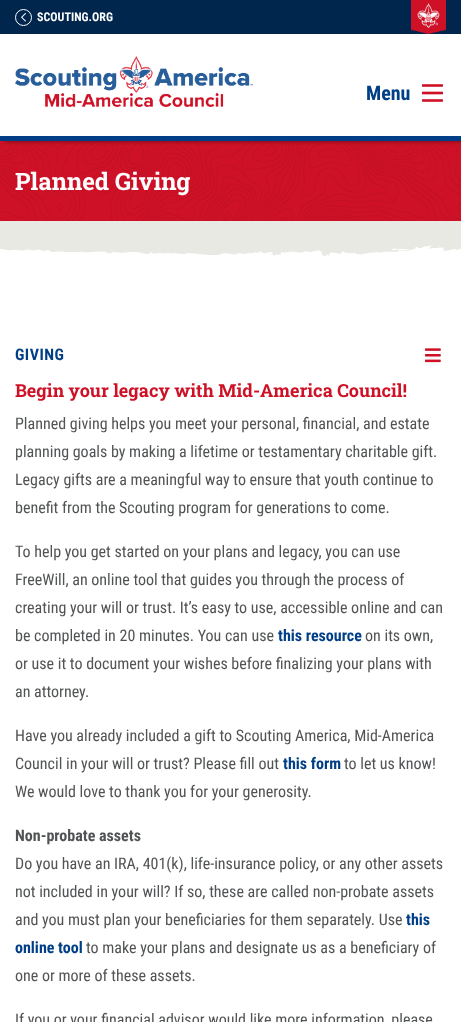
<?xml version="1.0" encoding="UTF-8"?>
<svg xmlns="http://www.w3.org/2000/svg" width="461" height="1022">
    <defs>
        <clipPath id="clip1"><rect x="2" y="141" width="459" height="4"/></clipPath>
        <filter id="blur1" x="-50%" y="-200%" width="200%" height="500%"><feGaussianBlur stdDeviation="2.5"/></filter>
    </defs>
    <rect width="100%" height="100%" fill="#FFFFFF"/>
    <image x="0" y="141" width="461" height="80" href="img_05.png"/>
    <g clip-path="url(#clip1)">
        <rect x="5" y="0" width="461" height="141" fill="#000000" fill-opacity="0.5" filter="url(#blur1)"/>
    </g>
    <rect x="0" y="136" width="461" height="5" fill="#003F87"/>
    <rect x="0" y="0" width="461" height="34" fill="#00264E"/>
    <circle cx="23.5" cy="17.5" r="8" fill="none" stroke="#FFFFFF"/>
    <image x="21" y="13" width="5" height="9" href="img_01.png"/>
    <text x="37" y="21" font-family="Roboto Condensed" font-size="12" font-weight="700" fill="#FEFEFE">SCOUTING.ORG</text>
    <image x="411" y="0" width="35" height="34" href="img_02.png"/>
    <image x="15" y="56" width="238" height="51" href="img_03.png"/>
    <text x="366" y="100" font-family="Roboto Condensed" font-size="20" font-weight="700" fill="#003F87">Menu</text>
    <image x="422" y="84" width="21" height="18" href="img_04.png"/>
    <text x="15" y="190" font-family="Roboto Slab" font-size="24" font-weight="700" fill="#FEFEFE">Planned Giving</text>
    <rect x="0" y="221" width="461" height="15" fill="#E9E9E4"/>
    <image x="0" y="236" width="461" height="20" href="img_06.png"/>
    <text x="15" y="360" font-family="Roboto Condensed" font-size="16" font-weight="700" letter-spacing="0.5" fill="#003F87">GIVING</text>
    <image x="425" y="348" width="16" height="15" href="img_07.png"/>
    <text x="15" y="397" font-family="Roboto Slab" font-size="18" font-weight="700" fill="#CE1126">Begin your legacy with Mid-America Council!</text>
    <text font-family="Roboto Condensed" font-size="16" fill="#515354">
        <tspan x="15" y="429">Planned giving helps you meet your personal, financial, and estate</tspan>
        <tspan x="15" y="457">planning goals by making a lifetime or testamentary charitable gift.</tspan>
        <tspan x="15" y="485">Legacy gifts are a meaningful way to ensure that youth continue to</tspan>
        <tspan x="15" y="513">benefit from the Scouting program for generations to come.</tspan>
    </text>
    <text font-family="Roboto Condensed" font-size="16" fill="#515354">
        <tspan x="15" y="557">To help you get started on your plans and legacy, you can use</tspan>
        <tspan x="15" y="585">FreeWill, an online tool that guides you through the process of</tspan>
        <tspan x="15" y="613">creating your will or trust. It’s easy to use, accessible online and can</tspan>
        <tspan x="15" y="641">be completed in 20 minutes. You can use</tspan>
    </text>
    <text x="278" y="641" font-family="Roboto Condensed" font-size="16" font-weight="700" fill="#003F87">this resource</text>
    <text x="365" y="641" font-family="Roboto Condensed" font-size="16" fill="#515354">on its own,</text>
    <text font-family="Roboto Condensed" font-size="16" fill="#515354">
        <tspan x="15" y="669">or use it to document your wishes before finalizing your plans with</tspan>
        <tspan x="15" y="697">an attorney.</tspan>
    </text>
    <text font-family="Roboto Condensed" font-size="16" fill="#515354">
        <tspan x="15" y="741">Have you already included a gift to Scouting America, Mid-America</tspan>
        <tspan x="15" y="769">Council in your will or trust? Please fill out</tspan>
    </text>
    <text x="283" y="769" font-family="Roboto Condensed" font-size="16" font-weight="700" fill="#003F87">this form</text>
    <text x="344" y="769" font-family="Roboto Condensed" font-size="16" fill="#515354">to let us know!</text>
    <text x="15" y="797" font-family="Roboto Condensed" font-size="16" fill="#515354">We would love to thank you for your generosity.</text>
    <text x="15" y="841" font-family="Roboto Condensed" font-size="16" font-weight="700" fill="#515354">Non-probate assets</text>
    <text font-family="Roboto Condensed" font-size="16" fill="#515354">
        <tspan x="15" y="869">Do you have an IRA, 401(k), life-insurance policy, or any other assets</tspan>
        <tspan x="15" y="897">not included in your will? If so, these are called non-probate assets</tspan>
        <tspan x="15" y="925">and you must plan your beneficiaries for them separately. Use</tspan>
    </text>
    <text x="406" y="925" font-family="Roboto Condensed" font-size="16" font-weight="700" fill="#003F87">this</text>
    <text x="15" y="953" font-family="Roboto Condensed" font-size="16" font-weight="700" fill="#003F87">online tool</text>
    <text x="86" y="953" font-family="Roboto Condensed" font-size="16" fill="#515354">to make your plans and designate us as a beneficiary of</text>
    <text x="15" y="981" font-family="Roboto Condensed" font-size="16" fill="#515354">one or more of these assets.</text>
    <text x="15" y="1025" font-family="Roboto Condensed" font-size="16" fill="#515354">If you or your financial advisor would like more information, please</text>
</svg>
